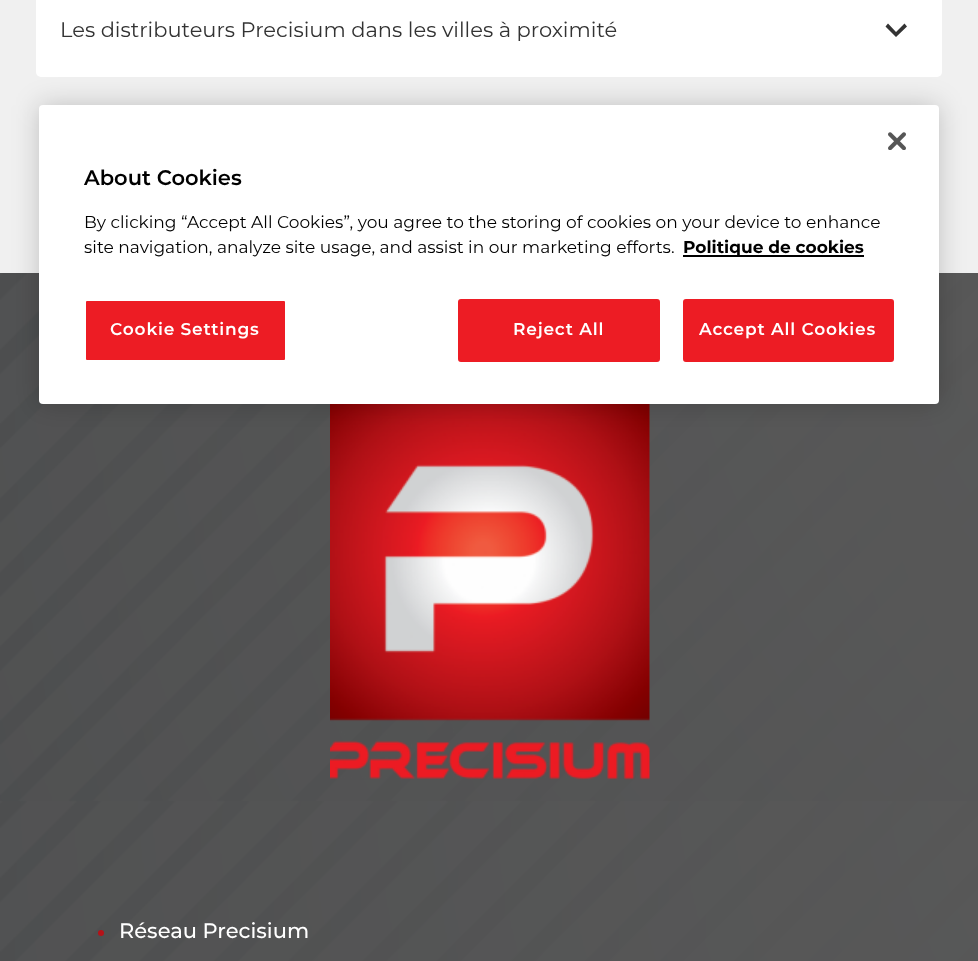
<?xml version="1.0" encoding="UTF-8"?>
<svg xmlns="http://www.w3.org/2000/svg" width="978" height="961">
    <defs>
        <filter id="blur1" x="-50%" y="-200%" width="200%" height="500%"><feGaussianBlur stdDeviation="13.5"/></filter>
    </defs>
    <rect width="100%" height="100%" fill="#F0F0F0"/>
    <rect x="36" y="-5" width="906" height="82" rx="5" fill="#FFFFFF"/>
    <text x="60" y="37" font-family="Montserrat" font-size="21" fill="#333333">Les distributeurs Precisium dans les villes à proximité</text>
    <path d="M 888 23.5 L 896 32 L 904.5 23.5 L 907 26.5 L 896 37 L 885.5 26.5 Z" fill="#333333"/>
    <image x="0" y="273" width="978" height="688" href="img_01.png"/>
    <image x="330" y="404" width="320" height="376" href="img_02.png"/>
    <circle cx="101" cy="933" r="3" fill="#B51218"/>
    <text x="119" y="938" font-family="Montserrat" font-size="21" font-weight="500" fill="#FFFFFF">Réseau Precisium</text>
    <rect x="39" y="105" width="900" height="299" rx="4" fill="#000000" fill-opacity="0.2" filter="url(#blur1)"/>
    <rect x="39" y="105" width="900" height="299" rx="4" fill="#FFFFFF"/>
    <image x="888" y="132" width="18" height="18" href="img_03.png"/>
    <text x="84" y="185" font-family="Montserrat" font-size="21" font-weight="600" fill="#000000">About Cookies</text>
    <text font-family="Montserrat" font-size="17.05" fill="#000000">
        <tspan x="84" y="228">By clicking “Accept All Cookies”, you agree to the storing of cookies on your device to enhance</tspan>
        <tspan x="84" y="253">site navigation, analyze site usage, and assist in our marketing efforts.</tspan>
    </text>
    <rect x="683" y="255" width="181" height="2" fill="#000000"/>
    <text x="683" y="253" font-family="Montserrat" font-size="17.05" font-weight="700" fill="#000000">Politique de cookies</text>
    <rect x="85" y="300" width="201" height="61" rx="2" fill="#ED1C24" stroke="#FFFFFF" stroke-width="2"/>
    <text x="110" y="335" font-family="Montserrat" font-size="17.05" font-weight="600" letter-spacing="0.8" fill="#FFFFFF">Cookie Settings</text>
    <rect x="459" y="300" width="200" height="61" rx="2" fill="#ED1C24" stroke="#ED1C24" stroke-width="2"/>
    <text x="513" y="335" font-family="Montserrat" font-size="17.05" font-weight="600" letter-spacing="0.8" fill="#FFFFFF">Reject All</text>
    <rect x="684" y="300" width="209" height="61" rx="2" fill="#ED1C24" stroke="#ED1C24" stroke-width="2"/>
    <text x="699" y="335" font-family="Montserrat" font-size="17.05" font-weight="600" letter-spacing="0.8" fill="#FFFFFF">Accept All Cookies</text>
</svg>
